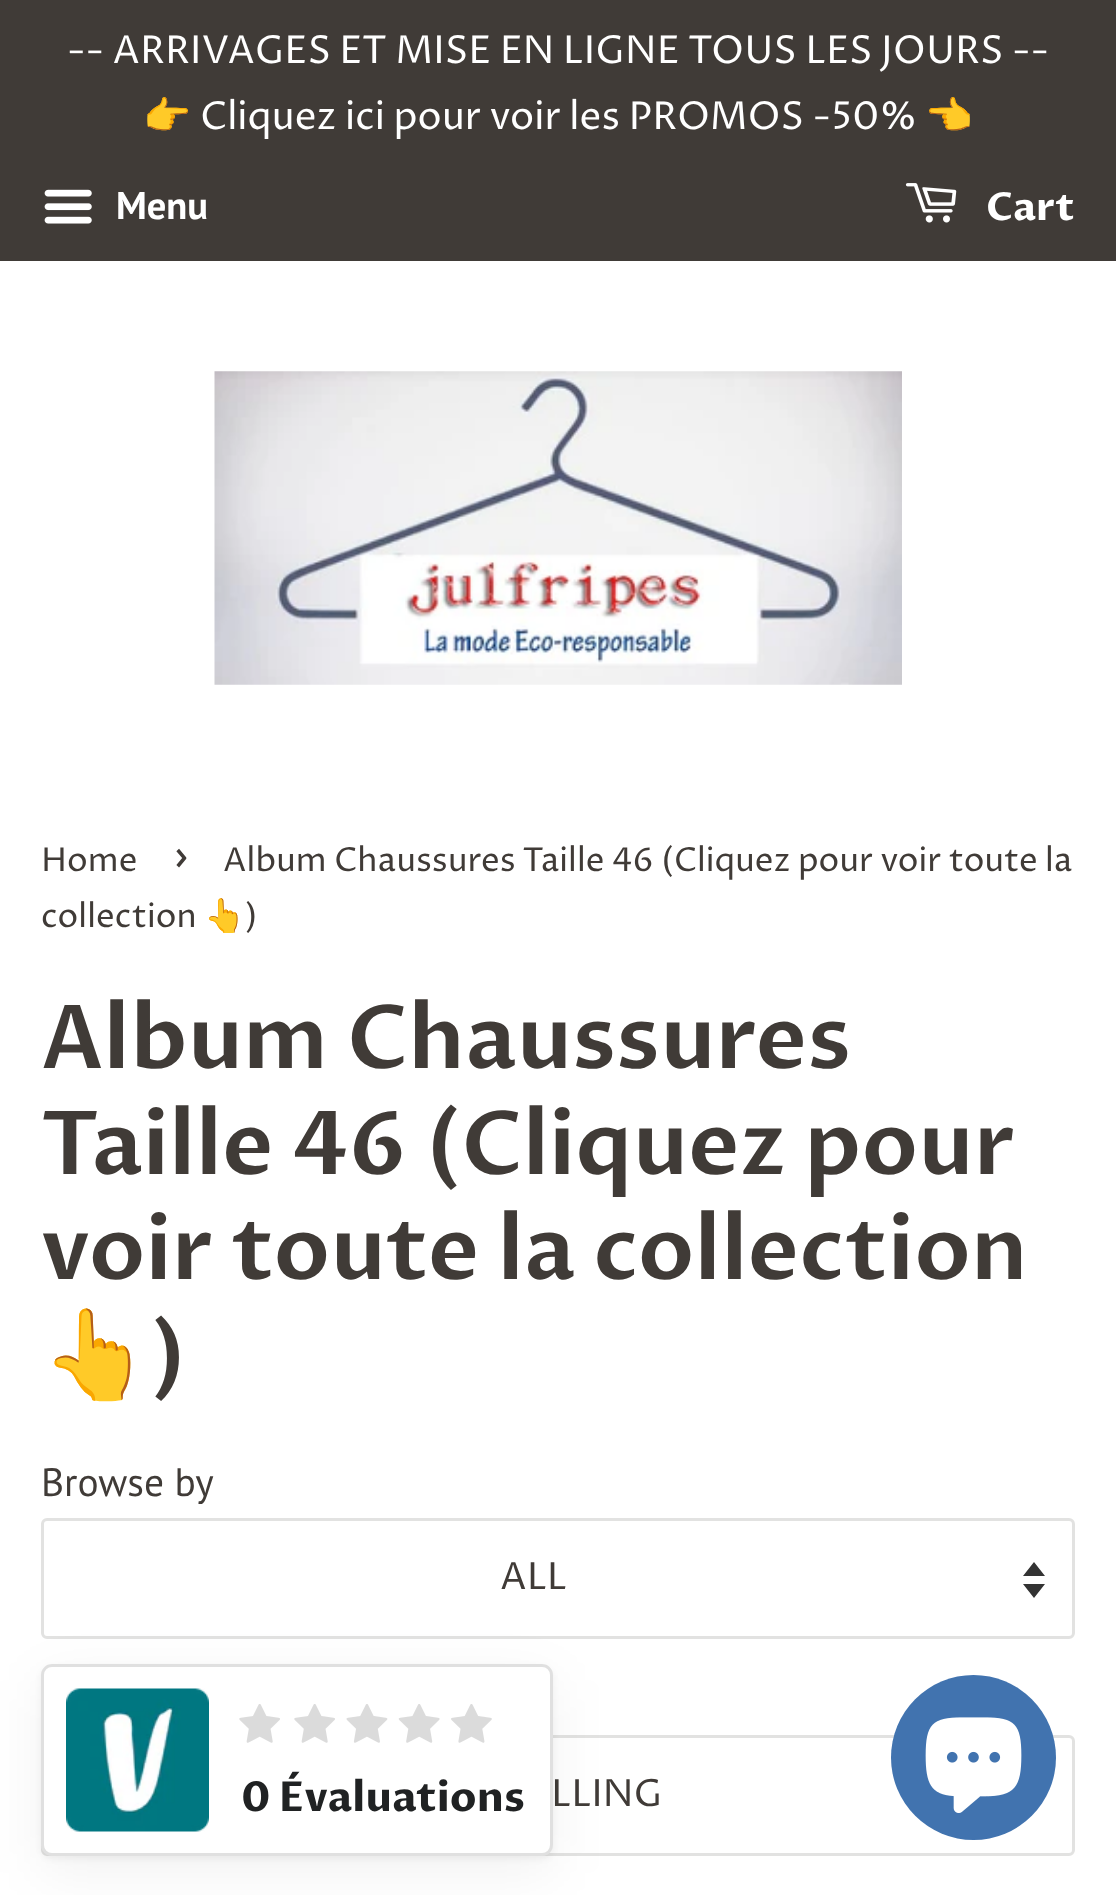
<?xml version="1.0" encoding="UTF-8"?>
<svg xmlns="http://www.w3.org/2000/svg" width="1116" height="1895">
    <defs>
        <filter id="blur1" x="-50%" y="-200%" width="200%" height="500%"><feGaussianBlur stdDeviation="3"/></filter>
        <filter id="blur2" x="-50%" y="-200%" width="200%" height="500%"><feGaussianBlur stdDeviation="27.5"/></filter>
    </defs>
    <rect width="100%" height="100%" fill="#FFFFFF"/>
    <rect x="0" y="0" width="1116" height="261" fill="#403B37"/>
    <text x="67" y="63" font-family="Proza Libre" font-size="38.5" fill="#FFFFFF">-- ARRIVAGES ET MISE EN LIGNE TOUS LES JOURS --</text>
    <text x="143" y="129" font-family="Noto Color Emoji" font-size="38.5" fill="#FFFFFF">👉</text>
    <text x="200" y="129" font-family="Proza Libre" font-size="38.5" fill="#FFFFFF">Cliquez ici pour voir les PROMOS -50%</text>
    <text x="925" y="129" font-family="Noto Color Emoji" font-size="38.5" fill="#FFFFFF">👈</text>
    <image x="44" y="189" width="48" height="35" href="img_01.png"/>
    <text x="116" y="219" font-family="PT Sans" font-size="38.5" font-weight="700" fill="#FFFFFF">Menu</text>
    <image x="905" y="183" width="52" height="40" href="img_02.png"/>
    <text x="986" y="220" font-family="Proza Libre" font-size="38.5" font-weight="700" fill="#FFFFFF">Cart</text>
    <image x="214" y="371" width="688" height="314" href="img_03.png"/>
    <text x="41" y="871" font-family="Proza Libre" font-size="33" fill="#403B37">Home</text>
    <text x="173" y="871" font-family="Proza Libre" font-size="46" fill="#403B37">›</text>
    <text x="223" y="871" font-family="Proza Libre" font-size="33" fill="#403B37">Album Chaussures Taille 46 (Cliquez pour voir toute la</text>
    <text x="41" y="927" font-family="Proza Libre" font-size="33" fill="#403B37">collection</text>
    <text x="204" y="927" font-family="Noto Color Emoji" font-size="33" fill="#403B37">👆</text>
    <text x="245" y="927" font-family="Proza Libre" font-size="33" fill="#403B37">)</text>
    <text font-family="Proza Libre" font-size="88" font-weight="600" fill="#403B37">
        <tspan x="41" y="1068">Album Chaussures</tspan>
        <tspan x="41" y="1174">Taille 46 (Cliquez pour</tspan>
        <tspan x="41" y="1279">voir toute la collection</tspan>
    </text>
    <text x="41" y="1385" font-family="Noto Color Emoji" font-size="88" font-weight="700" fill="#403B37">👆</text>
    <text x="151" y="1385" font-family="Proza Libre" font-size="88" font-weight="600" fill="#403B37">)</text>
    <text x="41" y="1496" font-family="PT Sans" font-size="39.5" fill="#403B37">Browse by</text>
    <path d="M 1023 1584 L 1034 1598 L 1045 1584 Z M 1034 1562 L 1023 1576 H 1045 Z" fill="#333333"/>
    <rect x="42.5" y="1519.5" width="1031" height="118" rx="4.5" fill="none" stroke="#E2E2E1" stroke-width="3"/>
    <text x="500" y="1589" font-family="Proza Libre" font-size="37.5" fill="#403B37">ALL</text>
    <rect x="42.5" y="1736.5" width="1031" height="118" rx="4.5" fill="none" stroke="#E2E2E1" stroke-width="3"/>
    <text x="551" y="1806" font-family="Proza Libre" font-size="37.5" fill="#403B37">LLING</text>
    <rect x="41" y="1667" width="512" height="192" rx="11" fill="#000000" fill-opacity="0.05" filter="url(#blur1)"/>
    <rect x="41" y="1680" width="512" height="193" rx="11" fill="#000000" fill-opacity="0.05" filter="url(#blur2)"/>
    <rect x="41" y="1664" width="512" height="192" rx="11" fill="#FFFFFF"/>
    <rect x="42.5" y="1665.5" width="509" height="189" rx="9.5" fill="none" stroke="#000000" stroke-opacity="0.12" stroke-width="3"/>
    <image x="66" y="1688" width="143" height="144" href="img_04.png"/>
    <image x="239" y="1704" width="41" height="39" href="img_05.png"/>
    <image x="294" y="1704" width="41" height="39" href="img_05.png"/>
    <image x="346" y="1704" width="42" height="39" href="img_06.png"/>
    <image x="398" y="1704" width="42" height="39" href="img_07.png"/>
    <image x="451" y="1704" width="41" height="39" href="img_08.png"/>
    <text x="241" y="1811" font-family="Proza Libre" font-size="41.25" font-weight="700" fill="#202223">0 Évaluations</text>
    <circle cx="973.5" cy="1757.5" r="82.5" fill="#4173AF"/>
    <image x="925" y="1717" width="97" height="96" href="img_09.png"/>
</svg>
